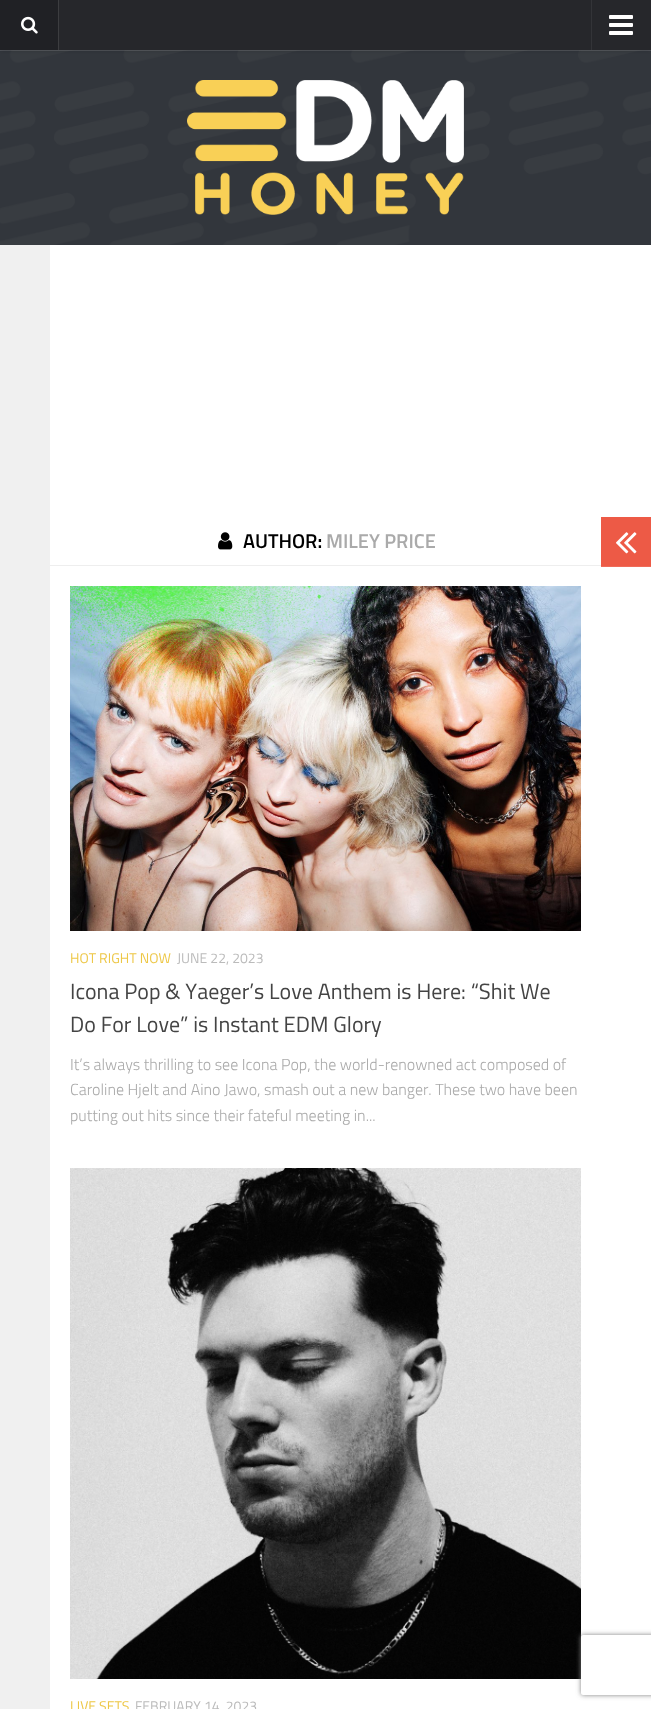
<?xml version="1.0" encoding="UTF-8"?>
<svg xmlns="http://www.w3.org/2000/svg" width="651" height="1709">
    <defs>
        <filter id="blur1" x="-50%" y="-200%" width="200%" height="500%"><feGaussianBlur stdDeviation="2.5"/></filter>
        <clipPath id="clip1"><path d="M 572 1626 H 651 V 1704 H 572 Z M 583 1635 H 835 C 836 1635 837 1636 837 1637 V 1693 C 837 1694 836 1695 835 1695 H 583 C 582 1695 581 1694 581 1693 V 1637 C 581 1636 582 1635 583 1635 Z" clip-rule="evenodd"/></clipPath>
    </defs>
    <rect width="100%" height="100%" fill="#FFFFFF"/>
    <image x="0" y="50" width="651" height="195" href="img_01.png"/>
    <rect x="0" y="50" width="651" height="1" fill="#FFFFFF" fill-opacity="0.15"/>
    <rect x="0" y="0" width="651" height="50" fill="#000000" fill-opacity="0.2" filter="url(#blur1)"/>
    <rect x="59" y="0" width="592" height="50" fill="#26272B"/>
    <rect x="58" y="0" width="1" height="50" fill="#3C3D40"/>
    <rect x="0" y="0" width="58" height="50" fill="#202125"/>
    <image x="21" y="16" width="17" height="18" href="img_02.png"/>
    <rect x="591" y="0" width="1" height="50" fill="#333438"/>
    <image x="609" y="15" width="24" height="20" href="img_03.png"/>
    <image x="187" y="80" width="277" height="135" href="img_04.png"/>
    <rect x="0" y="245" width="50" height="1464" fill="#F0F0F0"/>
    <rect x="50" y="565" width="551" height="1" fill="#EEEEEE"/>
    <image x="218" y="532" width="15" height="18" href="img_05.png"/>
    <text x="243" y="548" font-family="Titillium" font-size="20" font-weight="600" fill="#000000">AUTHOR:</text>
    <text x="326" y="548" font-family="Titillium" font-size="20" font-weight="600" fill="#AAAAAA">MILEY PRICE</text>
    <image x="70" y="586" width="511" height="345" href="img_06.png"/>
    <text x="70" y="963" font-family="Titillium" font-size="14" fill="#EDC746">HOT RIGHT NOW</text>
    <text x="177" y="963" font-family="Titillium" font-size="14" fill="#BBBBBB">JUNE 22, 2023</text>
    <text font-family="Titillium" font-size="22" fill="#444444">
        <tspan x="70" y="999">Icona Pop &amp; Yaeger’s Love Anthem is Here: “Shit We</tspan>
        <tspan x="70" y="1032">Do For Love” is Instant EDM Glory</tspan>
    </text>
    <text font-family="Titillium" font-size="16" font-weight="300" fill="#AAAAAA">
        <tspan x="70" y="1070">It’s always thrilling to see Icona Pop, the world-renowned act composed of</tspan>
        <tspan x="70" y="1095">Caroline Hjelt and Aino Jawo, smash out a new banger. These two have been</tspan>
        <tspan x="70" y="1121">putting out hits since their fateful meeting in...</tspan>
    </text>
    <image x="70" y="1168" width="511" height="511" href="img_07.png"/>
    <text x="70" y="1711" font-family="Titillium" font-size="14" fill="#EDC746">LIVE SETS</text>
    <text x="135" y="1711" font-family="Titillium" font-size="14" fill="#BBBBBB">FEBRUARY 14, 2023</text>
    <rect x="601" y="517" width="50" height="49" fill="#ED5A46"/>
    <rect x="601" y="566" width="50" height="1" fill="#EF6B59"/>
    <image x="616" y="532" width="21" height="22" href="img_08.png"/>
    <g clip-path="url(#clip1)">
        <rect x="581" y="1635" width="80" height="60" rx="2" fill="#808080" filter="url(#blur1)"/>
    </g>
</svg>
